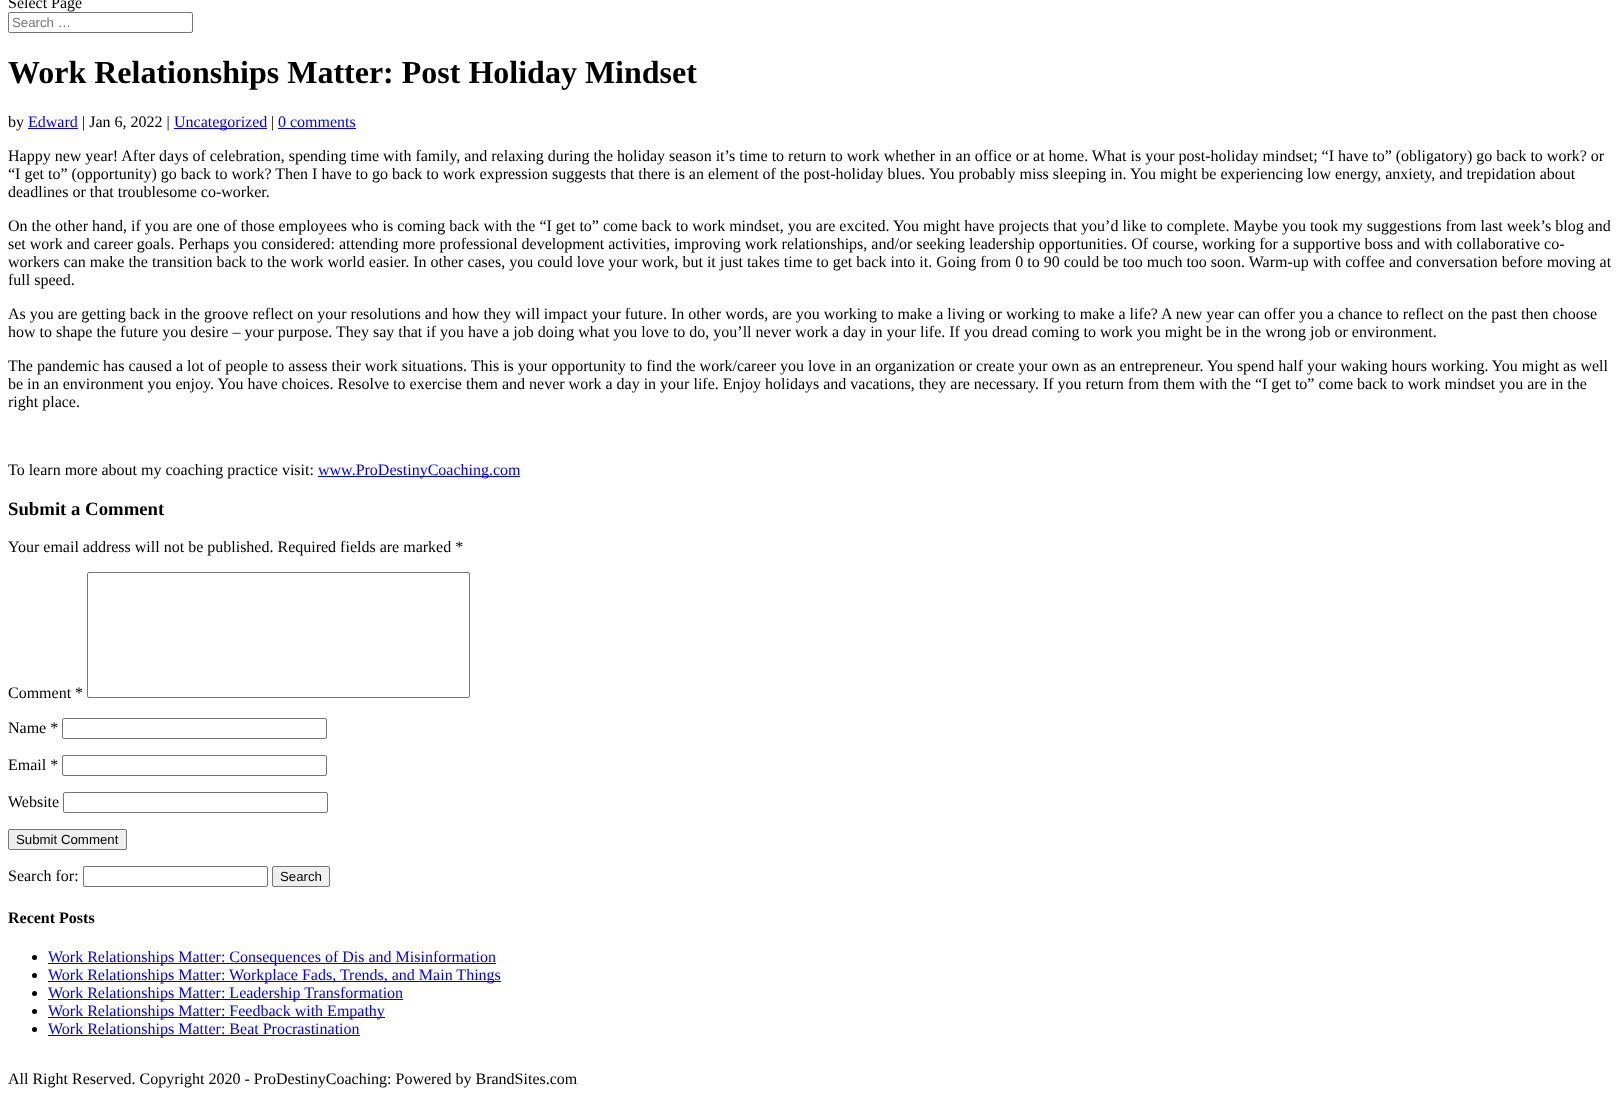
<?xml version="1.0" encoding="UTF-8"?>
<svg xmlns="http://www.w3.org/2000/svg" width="1624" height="1094">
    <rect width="100%" height="100%" fill="#FFFFFF"/>
    <text x="8" y="8" font-family="Liberation Serif" font-size="16" fill="#000000">Select Page</text>
    <rect x="8.5" y="12.5" width="184" height="20" rx="1.5" fill="none" stroke="#767676"/>
    <text x="12" y="27" font-family="Liberation Sans" font-size="13.25" fill="#757575">Search …</text>
    <text x="8" y="83" font-family="Liberation Serif" font-size="32" font-weight="700" fill="#000000">Work Relationships Matter: Post Holiday Mindset</text>
    <text x="8" y="127" font-family="Liberation Serif" font-size="16" fill="#000000">by</text>
    <text x="28" y="127" font-family="Liberation Serif" font-size="16" fill="#0000EE">Edward</text>
    <rect x="28" y="128" width="50" height="1" fill="#0000EE"/>
    <text x="82" y="127" font-family="Liberation Serif" font-size="16" fill="#000000">| Jan 6, 2022 |</text>
    <rect x="174" y="128" width="93" height="1" fill="#0000EE"/>
    <text x="174" y="127" font-family="Liberation Serif" font-size="16" fill="#0000EE">Uncategorized</text>
    <text x="271" y="127" font-family="Liberation Serif" font-size="16" fill="#000000">|</text>
    <text x="278" y="127" font-family="Liberation Serif" font-size="16" fill="#0000EE">0 comments</text>
    <rect x="278" y="128" width="78" height="1" fill="#0000EE"/>
    <text font-family="Liberation Serif" font-size="16" fill="#000000">
        <tspan x="8" y="161">Happy new year! After days of celebration, spending time with family, and relaxing during the holiday season it’s time to return to work whether in an office or at home. What is your post-holiday mindset; “I have to” (obligatory) go back to work? or</tspan>
        <tspan x="8" y="179">“I get to” (opportunity) go back to work? Then I have to go back to work expression suggests that there is an element of the post-holiday blues. You probably miss sleeping in. You might be experiencing low energy, anxiety, and trepidation about</tspan>
        <tspan x="8" y="197">deadlines or that troublesome co-worker.</tspan>
    </text>
    <text font-family="Liberation Serif" font-size="16" fill="#000000">
        <tspan x="8" y="231">On the other hand, if you are one of those employees who is coming back with the “I get to” come back to work mindset, you are excited. You might have projects that you’d like to complete. Maybe you took my suggestions from last week’s blog and</tspan>
        <tspan x="8" y="249">set work and career goals. Perhaps you considered: attending more professional development activities, improving work relationships, and/or seeking leadership opportunities. Of course, working for a supportive boss and with collaborative co-</tspan>
        <tspan x="8" y="267">workers can make the transition back to the work world easier. In other cases, you could love your work, but it just takes time to get back into it. Going from 0 to 90 could be too much too soon. Warm-up with coffee and conversation before moving at</tspan>
        <tspan x="8" y="285">full speed.</tspan>
    </text>
    <text font-family="Liberation Serif" font-size="16" fill="#000000">
        <tspan x="8" y="319">As you are getting back in the groove reflect on your resolutions and how they will impact your future. In other words, are you working to make a living or working to make a life? A new year can offer you a chance to reflect on the past then choose</tspan>
        <tspan x="8" y="337">how to shape the future you desire – your purpose. They say that if you have a job doing what you love to do, you’ll never work a day in your life. If you dread coming to work you might be in the wrong job or environment.</tspan>
    </text>
    <text font-family="Liberation Serif" font-size="16" fill="#000000">
        <tspan x="8" y="371">The pandemic has caused a lot of people to assess their work situations. This is your opportunity to find the work/career you love in an organization or create your own as an entrepreneur. You spend half your waking hours working. You might as well</tspan>
        <tspan x="8" y="389">be in an environment you enjoy. You have choices. Resolve to exercise them and never work a day in your life. Enjoy holidays and vacations, they are necessary. If you return from them with the “I get to” come back to work mindset you are in the</tspan>
        <tspan x="8" y="407">right place.</tspan>
    </text>
    <text x="8" y="475" font-family="Liberation Serif" font-size="16" fill="#000000">To learn more about my coaching practice visit:</text>
    <rect x="318" y="476" width="202" height="1" fill="#0000EE"/>
    <text x="318" y="475" font-family="Liberation Serif" font-size="16" fill="#0000EE">www.ProDestinyCoaching.com</text>
    <text x="8" y="515" font-family="Liberation Serif" font-size="18.75" font-weight="700" fill="#000000">Submit a Comment</text>
    <text x="8" y="552" font-family="Liberation Serif" font-size="16" fill="#000000">Your email address will not be published. Required fields are marked *</text>
    <text x="8" y="698" font-family="Liberation Serif" font-size="16" fill="#000000">Comment *</text>
    <rect x="87.5" y="572.5" width="382" height="125" rx="1.5" fill="none" stroke="#767676"/>
    <text x="8" y="733" font-family="Liberation Serif" font-size="16" fill="#000000">Name *</text>
    <rect x="62.5" y="718.5" width="264" height="20" rx="1.5" fill="none" stroke="#767676"/>
    <text x="8" y="770" font-family="Liberation Serif" font-size="16" fill="#000000">Email *</text>
    <rect x="62.5" y="755.5" width="264" height="20" rx="1.5" fill="none" stroke="#767676"/>
    <text x="8" y="807" font-family="Liberation Serif" font-size="16" fill="#000000">Website</text>
    <rect x="63.5" y="792.5" width="264" height="20" rx="1.5" fill="none" stroke="#767676"/>
    <rect x="8.5" y="829.5" width="118" height="20" rx="1.5" fill="#EFEFEF" stroke="#767676"/>
    <text x="16" y="844" font-family="Liberation Sans" font-size="13.25" fill="#000000">Submit Comment</text>
    <text x="8" y="881" font-family="Liberation Serif" font-size="16" fill="#000000">Search for:</text>
    <rect x="83.5" y="866.5" width="184" height="20" rx="1.5" fill="none" stroke="#767676"/>
    <rect x="272.5" y="866.5" width="57" height="20" rx="1.5" fill="#EFEFEF" stroke="#767676"/>
    <text x="280" y="881" font-family="Liberation Sans" font-size="13.25" fill="#000000">Search</text>
    <text x="8" y="923" font-family="Liberation Serif" font-size="16" font-weight="700" fill="#000000">Recent Posts</text>
    <circle cx="34.5" cy="957.5" r="2.5" fill="#000000"/>
    <rect x="48" y="963" width="448" height="1" fill="#0000EE"/>
    <text x="48" y="962" font-family="Liberation Serif" font-size="16" fill="#0000EE">Work Relationships Matter: Consequences of Dis and Misinformation</text>
    <circle cx="34.5" cy="975.5" r="2.5" fill="#000000"/>
    <rect x="48" y="981" width="453" height="1" fill="#0000EE"/>
    <text x="48" y="980" font-family="Liberation Serif" font-size="16" fill="#0000EE">Work Relationships Matter: Workplace Fads, Trends, and Main Things</text>
    <circle cx="34.5" cy="993.5" r="2.5" fill="#000000"/>
    <rect x="48" y="999" width="355" height="1" fill="#0000EE"/>
    <text x="48" y="998" font-family="Liberation Serif" font-size="16" fill="#0000EE">Work Relationships Matter: Leadership Transformation</text>
    <circle cx="34.5" cy="1011.5" r="2.5" fill="#000000"/>
    <rect x="48" y="1017" width="337" height="1" fill="#0000EE"/>
    <text x="48" y="1016" font-family="Liberation Serif" font-size="16" fill="#0000EE">Work Relationships Matter: Feedback with Empathy</text>
    <circle cx="34.5" cy="1029.5" r="2.5" fill="#000000"/>
    <rect x="48" y="1035" width="312" height="1" fill="#0000EE"/>
    <text x="48" y="1034" font-family="Liberation Serif" font-size="16" fill="#0000EE">Work Relationships Matter: Beat Procrastination</text>
    <text x="8" y="1084" font-family="Liberation Serif" font-size="16" fill="#000000">All Right Reserved. Copyright 2020 - ProDestinyCoaching: Powered by BrandSites.com</text>
</svg>
